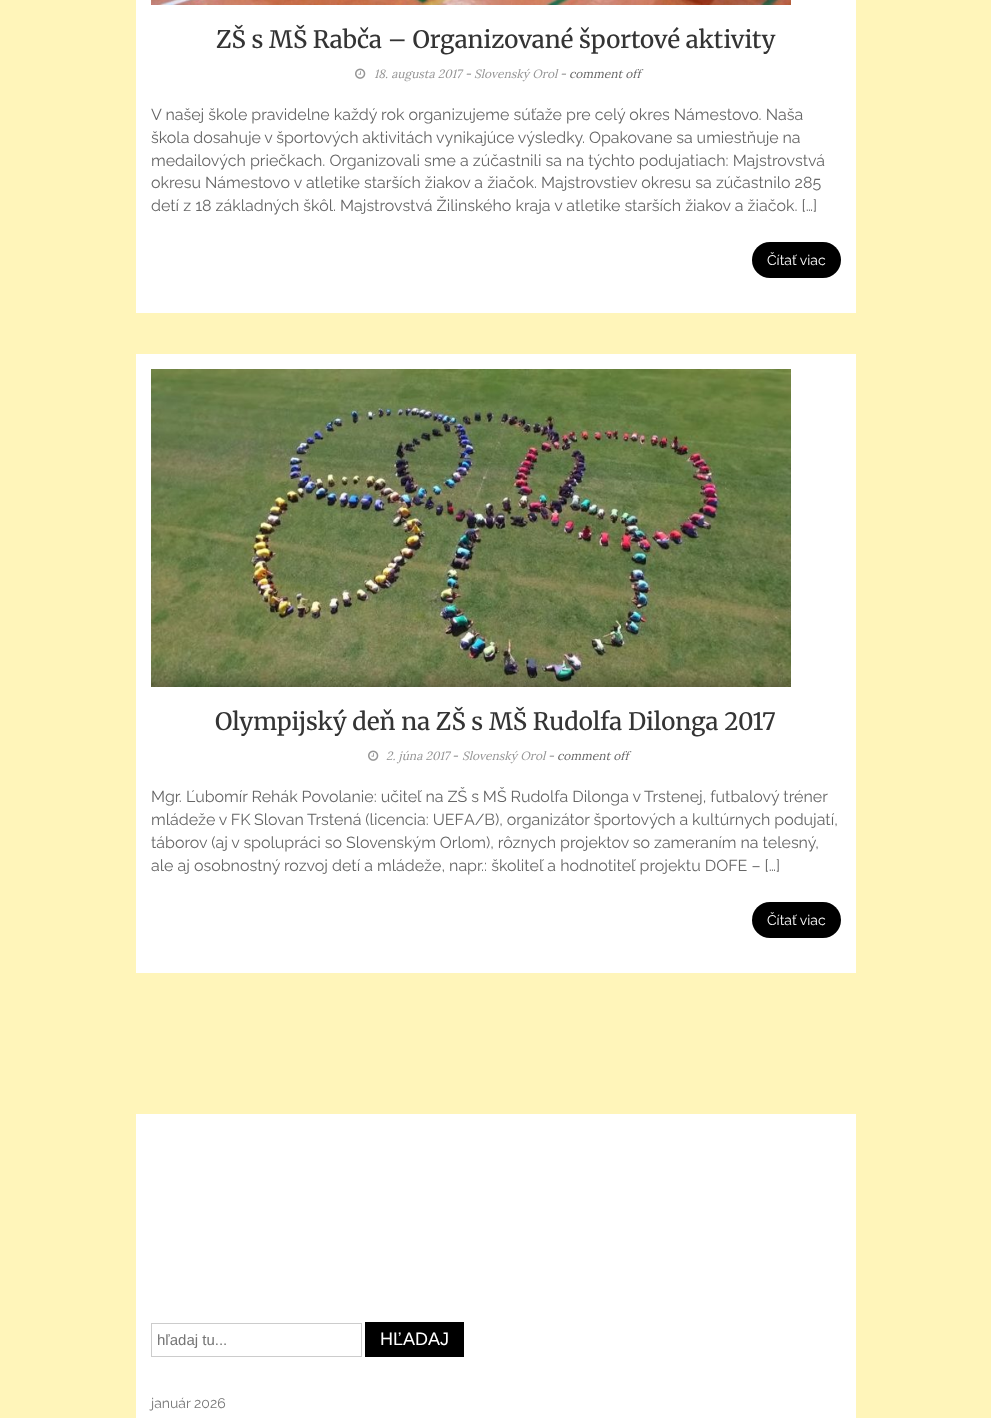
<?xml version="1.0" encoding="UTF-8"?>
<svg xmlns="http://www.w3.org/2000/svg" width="991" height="1418">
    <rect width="100%" height="100%" fill="#FFF5BA"/>
    <rect x="136" y="0" width="720" height="313" fill="#FFFFFF"/>
    <image x="151" y="0" width="640" height="5" href="img_01.png"/>
    <text x="216" y="48" font-family="Merriweather" font-size="24" font-weight="500" fill="#343434">ZŠ s MŠ Rabča – Organizované športové aktivity</text>
    <image x="355" y="68" width="11" height="11" href="img_02.png"/>
    <text x="374" y="78" font-family="Lora" font-size="12" font-style="italic" fill="#959595">18. augusta 2017</text>
    <text x="465" y="78" font-family="Lora" font-size="12" font-style="italic" fill="#666666">-</text>
    <text x="474" y="78" font-family="Lora" font-size="12" font-style="italic" fill="#959595">Slovenský Orol</text>
    <text x="560" y="78" font-family="Lora" font-size="12" font-style="italic" fill="#666666">- comment off</text>
    <text font-family="Raleway" font-size="16" fill="#666666">
        <tspan x="151" y="120">V našej škole pravidelne každý rok organizujeme súťaže pre celý okres Námestovo. Naša</tspan>
        <tspan x="151" y="143" word-spacing="-0.25">škola dosahuje v športových aktivitách vynikajúce výsledky. Opakovane sa umiestňuje na</tspan>
        <tspan x="151" y="166">medailových priečkach. Organizovali sme a zúčastnili sa na týchto podujatiach: Majstrovstvá</tspan>
        <tspan x="151" y="188">okresu Námestovo v atletike starších žiakov a žiačok. Majstrovstiev okresu sa zúčastnilo 285</tspan>
        <tspan x="151" y="211">detí z 18 základných škôl. Majstrovstvá Žilinského kraja v atletike starších žiakov a žiačok. […]</tspan>
    </text>
    <rect x="752" y="242" width="89" height="36" rx="18" fill="#000000"/>
    <text x="767" y="265" font-family="Raleway" font-size="14" fill="#FFFFFF">Čítať viac</text>
    <rect x="136" y="354" width="720" height="619" fill="#FFFFFF"/>
    <image x="151" y="369" width="640" height="318" href="img_03.png"/>
    <text x="215" y="730" font-family="Merriweather" font-size="24" font-weight="500" fill="#343434">Olympijský deň na ZŠ s MŠ Rudolfa Dilonga 2017</text>
    <image x="368" y="750" width="11" height="11" href="img_02.png"/>
    <text x="386" y="760" font-family="Lora" font-size="12" font-style="italic" fill="#959595">2. júna 2017</text>
    <text x="452" y="760" font-family="Lora" font-size="12" font-style="italic" fill="#666666">-</text>
    <text x="462" y="760" font-family="Lora" font-size="12" font-style="italic" fill="#959595">Slovenský Orol</text>
    <text x="548" y="760" font-family="Lora" font-size="12" font-style="italic" fill="#666666">- comment off</text>
    <text font-family="Raleway" font-size="16" fill="#666666">
        <tspan x="151" y="802" word-spacing="-0.1"> Mgr. Ľubomír Rehák Povolanie: učiteľ na ZŠ s MŠ Rudolfa Dilonga v Trstenej, futbalový tréner</tspan>
        <tspan x="151" y="825" word-spacing="-0.25">mládeže v FK Slovan Trstená (licencia: UEFA/B), organizátor športových a kultúrnych podujatí,</tspan>
        <tspan x="151" y="848" word-spacing="-0.1">táborov (aj v spolupráci so Slovenským Orlom), rôznych projektov so zameraním na telesný,</tspan>
        <tspan x="151" y="871">ale aj osobnostný rozvoj detí a mládeže, napr.: školiteľ a hodnotiteľ projektu DOFE – […]</tspan>
    </text>
    <rect x="752" y="902" width="89" height="36" rx="18" fill="#000000"/>
    <text x="767" y="925" font-family="Raleway" font-size="14" fill="#FFFFFF">Čítať viac</text>
    <rect x="136" y="1114" width="720" height="304" fill="#FFFFFF"/>
    <rect x="151.5" y="1323.5" width="210" height="33" fill="none" stroke="#CCCCCC"/>
    <text x="157" y="1345" font-family="Liberation Sans" font-size="15" fill="#757575">hľadaj tu...</text>
    <rect x="365" y="1322" width="99" height="35" fill="#000000"/>
    <text x="380" y="1345" font-family="Liberation Sans" font-size="18" fill="#FFFFFF">HĽADAJ</text>
    <text x="151" y="1408" font-family="Raleway" font-size="14" fill="#757575">január 2026</text>
</svg>
